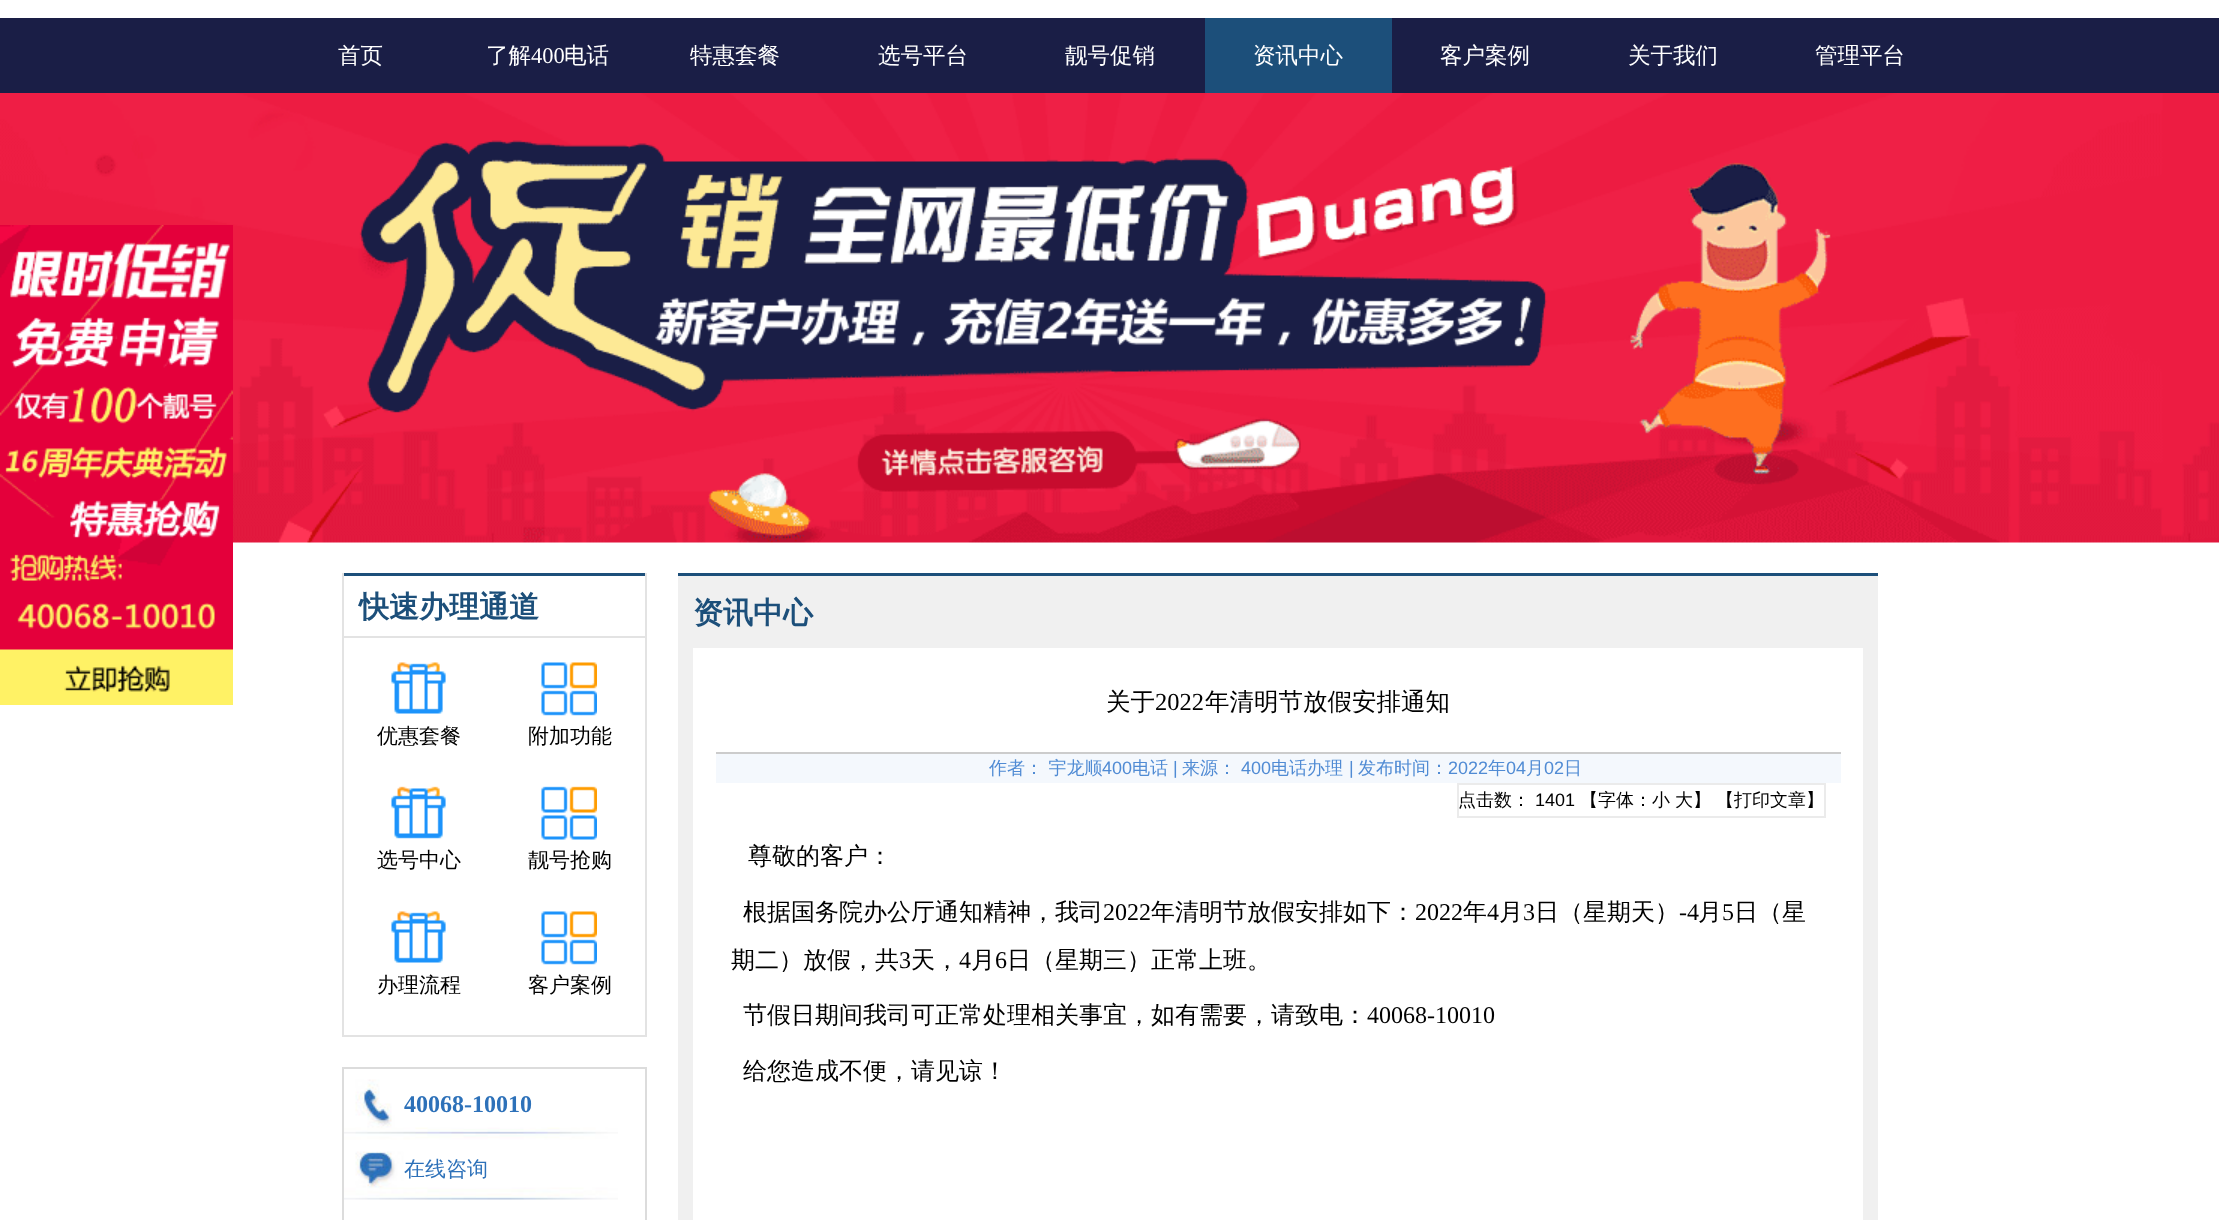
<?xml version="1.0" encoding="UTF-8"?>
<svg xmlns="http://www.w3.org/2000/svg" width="2219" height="1220">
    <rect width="100%" height="100%" fill="#FFFFFF"/>
    <rect x="0" y="18" width="2219" height="75" fill="#1A1E46"/>
    <text x="338" y="63" font-family="WenQuanYi Zen Hei" font-size="22.5" font-weight="500" fill="#FFFFFF">首页</text>
    <text x="486" y="63" font-family="WenQuanYi Zen Hei" font-size="22.5" font-weight="500" fill="#FFFFFF">了解</text>
    <text x="531" y="63" font-family="Liberation Serif" font-size="22.5" fill="#FFFFFF">400</text>
    <text x="564" y="63" font-family="WenQuanYi Zen Hei" font-size="22.5" font-weight="500" fill="#FFFFFF">电话</text>
    <text x="690" y="63" font-family="WenQuanYi Zen Hei" font-size="22.5" font-weight="500" fill="#FFFFFF">特惠套餐</text>
    <text x="878" y="63" font-family="WenQuanYi Zen Hei" font-size="22.5" font-weight="500" fill="#FFFFFF">选号平台</text>
    <text x="1065" y="63" font-family="WenQuanYi Zen Hei" font-size="22.5" font-weight="500" fill="#FFFFFF">靓号促销</text>
    <rect x="1205" y="18" width="187" height="75" fill="#1C4F7A"/>
    <text x="1253" y="63" font-family="WenQuanYi Zen Hei" font-size="22.5" font-weight="500" fill="#FFFFFF">资讯中心</text>
    <text x="1440" y="63" font-family="WenQuanYi Zen Hei" font-size="22.5" font-weight="500" fill="#FFFFFF">客户案例</text>
    <text x="1628" y="63" font-family="WenQuanYi Zen Hei" font-size="22.5" font-weight="500" fill="#FFFFFF">关于我们</text>
    <text x="1815" y="63" font-family="WenQuanYi Zen Hei" font-size="22.5" font-weight="500" fill="#FFFFFF">管理平台</text>
    <image x="0" y="93" width="2219" height="450" href="img_01.png"/>
    <image x="0" y="225" width="233" height="480" href="img_02.png"/>
    <rect x="645" y="573" width="2" height="464" fill="#E3E3E3"/>
    <rect x="342" y="1035" width="305" height="2" fill="#E3E3E3"/>
    <rect x="342" y="573" width="2" height="464" fill="#E3E3E3"/>
    <rect x="344" y="573" width="301" height="3" fill="#1C4F7A"/>
    <rect x="344" y="636" width="301" height="2" fill="#E3E3E3"/>
    <text x="359" y="617" font-family="WenQuanYi Zen Hei" font-size="30" font-weight="700" fill="#1C4F7A">快速办理通道</text>
    <image x="391" y="662" width="55" height="52" href="img_03.png"/>
    <text x="377" y="743" font-family="WenQuanYi Zen Hei" font-size="21" font-weight="500" fill="#000000">优惠套餐</text>
    <image x="541" y="662" width="56" height="54" href="img_04.png"/>
    <text x="528" y="743" font-family="WenQuanYi Zen Hei" font-size="21" font-weight="500" fill="#000000">附加功能</text>
    <image x="391" y="786" width="55" height="53" href="img_05.png"/>
    <text x="377" y="867" font-family="WenQuanYi Zen Hei" font-size="21" font-weight="500" fill="#000000">选号中心</text>
    <image x="541" y="786" width="56" height="54" href="img_06.png"/>
    <text x="528" y="867" font-family="WenQuanYi Zen Hei" font-size="21" font-weight="500" fill="#000000">靓号抢购</text>
    <image x="391" y="911" width="55" height="52" href="img_03.png"/>
    <text x="377" y="992" font-family="WenQuanYi Zen Hei" font-size="21" font-weight="500" fill="#000000">办理流程</text>
    <image x="541" y="911" width="56" height="54" href="img_04.png"/>
    <text x="528" y="992" font-family="WenQuanYi Zen Hei" font-size="21" font-weight="500" fill="#000000">客户案例</text>
    <image x="344" y="1079" width="274" height="121" href="img_07.png"/>
    <rect x="343" y="1068" width="303" height="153" fill="none" stroke="#DCDCDC" stroke-width="2"/>
    <text x="404" y="1112" font-family="Liberation Serif" font-size="24" font-weight="700" fill="#2D71B9">40068-10010</text>
    <text x="404" y="1176" font-family="WenQuanYi Zen Hei" font-size="21" font-weight="500" fill="#2D71B9">在线咨询</text>
    <rect x="678" y="576" width="1200" height="644" fill="#F0F0F0"/>
    <rect x="678" y="573" width="1200" height="3" fill="#1C4F7A"/>
    <text x="693" y="623" font-family="WenQuanYi Zen Hei" font-size="30" font-weight="700" fill="#1C4F7A">资讯中心</text>
    <rect x="693" y="648" width="1170" height="572" fill="#FFFFFF"/>
    <text x="1106" y="710" font-family="WenQuanYi Zen Hei" font-size="24.5" font-weight="500" fill="#000000">关于</text>
    <text x="1155" y="710" font-family="Liberation Serif" font-size="24.5" fill="#000000">2022</text>
    <text x="1205" y="710" font-family="WenQuanYi Zen Hei" font-size="24.5" font-weight="500" fill="#000000">年清明节放假安排通知</text>
    <rect x="716" y="754" width="1125" height="29" fill="#F4F8FD"/>
    <rect x="716" y="752" width="1125" height="2" fill="#CCCCCC"/>
    <text x="989" y="774" font-family="WenQuanYi Zen Hei" font-size="18" font-weight="500" fill="#508BD4">作者： 宇龙顺</text>
    <text x="1102" y="774" font-family="Liberation Sans" font-size="18" fill="#508BD4">400</text>
    <text x="1132" y="774" font-family="WenQuanYi Zen Hei" font-size="18" font-weight="500" fill="#508BD4">电话</text>
    <text x="1173" y="774" font-family="Liberation Sans" font-size="18" fill="#508BD4">|</text>
    <text x="1182" y="774" font-family="WenQuanYi Zen Hei" font-size="18" font-weight="500" fill="#508BD4">来源：</text>
    <text x="1241" y="774" font-family="Liberation Sans" font-size="18" fill="#508BD4">400</text>
    <text x="1271" y="774" font-family="WenQuanYi Zen Hei" font-size="18" font-weight="500" fill="#508BD4">电话办理</text>
    <text x="1349" y="774" font-family="Liberation Sans" font-size="18" fill="#508BD4">|</text>
    <text x="1358" y="774" font-family="WenQuanYi Zen Hei" font-size="18" font-weight="500" fill="#508BD4">发布时间：</text>
    <text x="1448" y="774" font-family="Liberation Sans" font-size="18" fill="#508BD4">2022</text>
    <text x="1488" y="774" font-family="WenQuanYi Zen Hei" font-size="18" font-weight="500" fill="#508BD4">年</text>
    <text x="1506" y="774" font-family="Liberation Sans" font-size="18" fill="#508BD4">04</text>
    <text x="1526" y="774" font-family="WenQuanYi Zen Hei" font-size="18" font-weight="500" fill="#508BD4">月</text>
    <text x="1544" y="774" font-family="Liberation Sans" font-size="18" fill="#508BD4">02</text>
    <text x="1564" y="774" font-family="WenQuanYi Zen Hei" font-size="18" font-weight="500" fill="#508BD4">日</text>
    <rect x="1458" y="784" width="367" height="33" fill="none" stroke="#EBEBEB" stroke-width="2"/>
    <text x="1458" y="806" font-family="WenQuanYi Zen Hei" font-size="18" font-weight="500" fill="#000000">点击数：</text>
    <text x="1535" y="806" font-family="Liberation Sans" font-size="18" fill="#000000">1401</text>
    <text x="1580" y="806" font-family="WenQuanYi Zen Hei" font-size="18" font-weight="500" fill="#000000">【字体：小</text>
    <text x="1675" y="806" font-family="WenQuanYi Zen Hei" font-size="18" font-weight="500" fill="#000000">大】</text>
    <text x="1716" y="806" font-family="WenQuanYi Zen Hei" font-size="18" font-weight="500" fill="#000000">【打印文章】</text>
    <text x="748" y="864" font-family="WenQuanYi Zen Hei" font-size="24" font-weight="500" fill="#000000">尊敬的客户：</text>
    <text x="743" y="920" font-family="WenQuanYi Zen Hei" font-size="24" font-weight="500" fill="#000000">根据国务院办公厅通知精神，我司</text>
    <text x="1103" y="920" font-family="Liberation Serif" font-size="24" fill="#000000">2022</text>
    <text x="1151" y="920" font-family="WenQuanYi Zen Hei" font-size="24" font-weight="500" fill="#000000">年清明节放假安排如下：</text>
    <text x="1415" y="920" font-family="Liberation Serif" font-size="24" fill="#000000">2022</text>
    <text x="1463" y="920" font-family="WenQuanYi Zen Hei" font-size="24" font-weight="500" fill="#000000">年</text>
    <text x="1487" y="920" font-family="Liberation Serif" font-size="24" fill="#000000">4</text>
    <text x="1499" y="920" font-family="WenQuanYi Zen Hei" font-size="24" font-weight="500" fill="#000000">月</text>
    <text x="1523" y="920" font-family="Liberation Serif" font-size="24" fill="#000000">3</text>
    <text x="1535" y="920" font-family="WenQuanYi Zen Hei" font-size="24" font-weight="500" fill="#000000">日（星期天）</text>
    <text x="1679" y="920" font-family="Liberation Serif" font-size="24" fill="#000000">-4</text>
    <text x="1698" y="920" font-family="WenQuanYi Zen Hei" font-size="24" font-weight="500" fill="#000000">月</text>
    <text x="1722" y="920" font-family="Liberation Serif" font-size="24" fill="#000000">5</text>
    <text x="1734" y="920" font-family="WenQuanYi Zen Hei" font-size="24" font-weight="500" fill="#000000">日（星</text>
    <text x="731" y="968" font-family="WenQuanYi Zen Hei" font-size="24" font-weight="500" fill="#000000">期二）放假，共</text>
    <text x="899" y="968" font-family="Liberation Serif" font-size="24" fill="#000000">3</text>
    <text x="911" y="968" font-family="WenQuanYi Zen Hei" font-size="24" font-weight="500" fill="#000000">天，</text>
    <text x="959" y="968" font-family="Liberation Serif" font-size="24" fill="#000000">4</text>
    <text x="971" y="968" font-family="WenQuanYi Zen Hei" font-size="24" font-weight="500" fill="#000000">月</text>
    <text x="995" y="968" font-family="Liberation Serif" font-size="24" fill="#000000">6</text>
    <text x="1007" y="968" font-family="WenQuanYi Zen Hei" font-size="24" font-weight="500" fill="#000000">日（星期三）正常上班。</text>
    <text x="743" y="1023" font-family="WenQuanYi Zen Hei" font-size="24" font-weight="500" fill="#000000">节假日期间我司可正常处理相关事宜，如有需要，请致电：</text>
    <text x="1367" y="1023" font-family="Liberation Serif" font-size="24" fill="#000000">40068-10010</text>
    <text x="743" y="1079" font-family="WenQuanYi Zen Hei" font-size="24" font-weight="500" fill="#000000">给您造成不便，请见谅！</text>
</svg>
